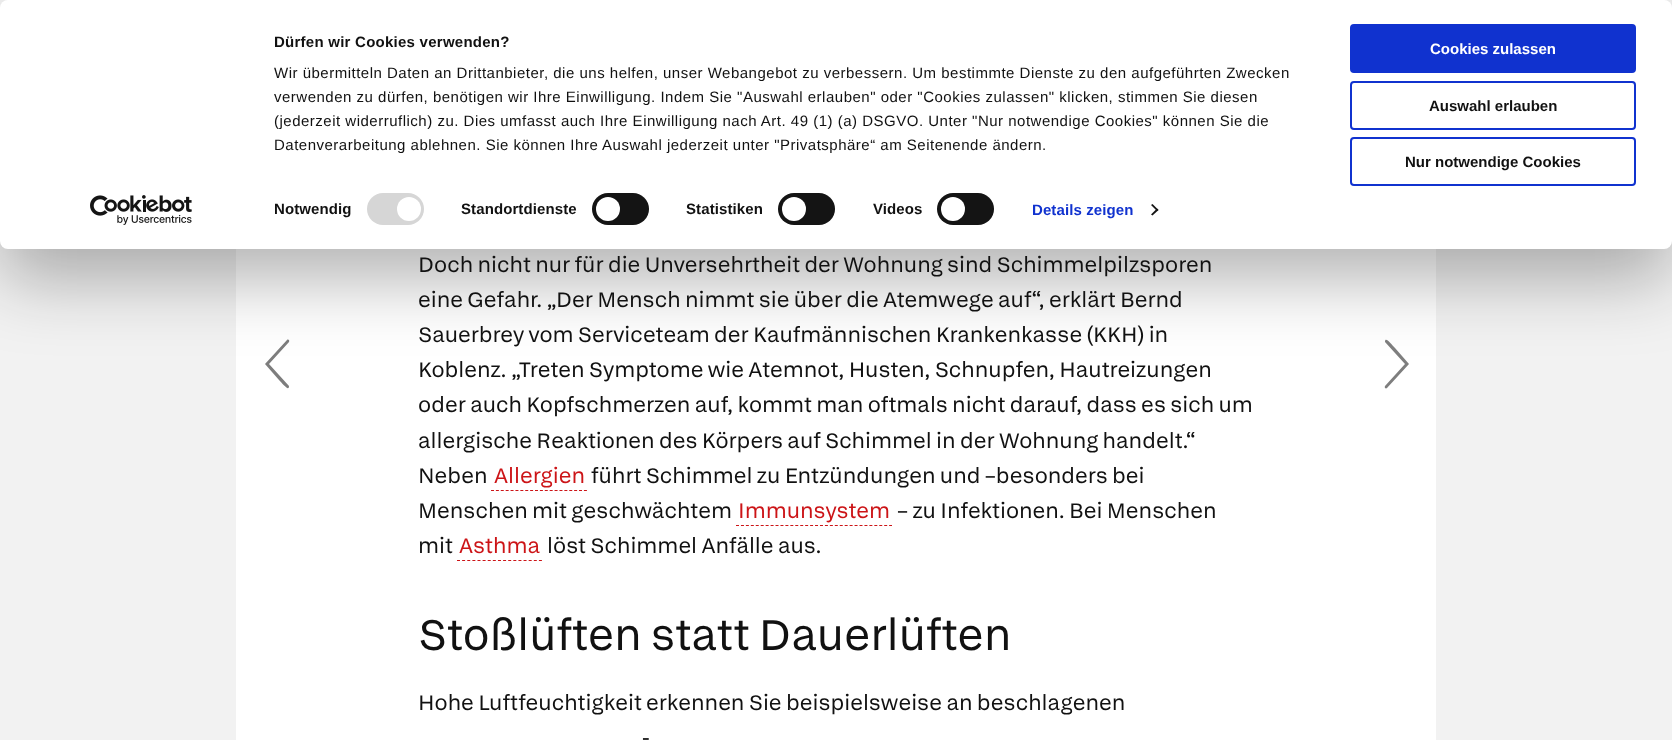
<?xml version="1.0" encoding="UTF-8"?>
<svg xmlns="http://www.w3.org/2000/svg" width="1672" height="740">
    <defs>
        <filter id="blur1" x="-50%" y="-200%" width="200%" height="500%"><feGaussianBlur stdDeviation="35"/></filter>
    </defs>
    <rect width="100%" height="100%" fill="#F2F2F2"/>
    <rect x="236" y="249" width="1200" height="491" fill="#FFFFFF"/>
    <path d="M 287 340 C 288 339 290 340 289 342 L 269 364 L 289 386 C 289 392 283 384 279 380 L 265 364 Z" fill="#7D7D7D"/>
    <path d="M 1387 388 C 1386 389 1384 388 1385 386 L 1405 364 L 1385 342 C 1385 336 1391 344 1395 348 L 1409 364 Z" fill="#7E7E7E"/>
    <rect x="0" y="30" width="1672" height="249" rx="8" fill="#000000" fill-opacity="0.3" filter="url(#blur1)"/>
    <rect x="0" y="0" width="1672" height="249" rx="8" fill="#FFFFFF"/>
    <text x="274" y="47" font-family="Liberation Sans" font-size="15" font-weight="700" letter-spacing="0.25" fill="#111111">Dürfen wir Cookies verwenden?</text>
    <text font-family="Liberation Sans" font-size="15" letter-spacing="0.5" fill="#111111">
        <tspan x="274" y="78">Wir übermitteln Daten an Drittanbieter, die uns helfen, unser Webangebot zu verbessern. Um bestimmte Dienste zu den aufgeführten Zwecken</tspan>
        <tspan x="274" y="102">verwenden zu dürfen, benötigen wir Ihre Einwilligung. Indem Sie "Auswahl erlauben" oder "Cookies zulassen" klicken, stimmen Sie diesen</tspan>
        <tspan x="274" y="126">(jederzeit widerruflich) zu. Dies umfasst auch Ihre Einwilligung nach Art. 49 (1) (a) DSGVO. Unter "Nur notwendige Cookies" können Sie die</tspan>
        <tspan x="274" y="150">Datenverarbeitung ablehnen. Sie können Ihre Auswahl jederzeit unter "Privatsphäre“ am Seitenende ändern.</tspan>
    </text>
    <text x="274" y="214" font-family="Liberation Sans" font-size="15" font-weight="700" letter-spacing="0.1" fill="#111111">Notwendig</text>
    <rect x="367" y="193" width="57" height="32" rx="16" fill="#D6D6D6"/>
    <circle cx="409" cy="209" r="12" fill="#FFFFFF"/>
    <text x="461" y="214" font-family="Liberation Sans" font-size="15" font-weight="700" letter-spacing="0.1" fill="#111111">Standortdienste</text>
    <rect x="592" y="193" width="57" height="32" rx="16" fill="#141414"/>
    <circle cx="608" cy="209" r="12" fill="#FFFFFF"/>
    <text x="686" y="214" font-family="Liberation Sans" font-size="15" font-weight="700" letter-spacing="0.1" fill="#111111">Statistiken</text>
    <rect x="778" y="193" width="57" height="32" rx="16" fill="#141414"/>
    <circle cx="794" cy="209" r="12" fill="#FFFFFF"/>
    <text x="873" y="214" font-family="Liberation Sans" font-size="15" font-weight="700" letter-spacing="0.1" fill="#111111">Videos</text>
    <rect x="937" y="193" width="57" height="32" rx="16" fill="#141414"/>
    <circle cx="953" cy="209" r="12" fill="#FFFFFF"/>
    <text x="1032" y="215" font-family="Liberation Sans" font-size="15" font-weight="700" letter-spacing="0.1" fill="#1032CF">Details zeigen</text>
    <path d="M 1152.5 204 L 1158.5 210 L 1157 211 L 1151 205 Z" fill="#141414"/>
    <path d="M 1157 208.5 L 1158.5 210 L 1152.5 215.5 L 1151 214.5 Z" fill="#141414"/>
    <rect x="1351" y="25" width="284" height="47" rx="3" fill="#1032CF" stroke="#1032CF" stroke-width="2"/>
    <text x="1430" y="54" font-family="Liberation Sans" font-size="15" font-weight="700" fill="#FFFFFF">Cookies zulassen</text>
    <rect x="1351" y="82" width="284" height="47" rx="3" fill="none" stroke="#1032CF" stroke-width="2"/>
    <text x="1429" y="111" font-family="Liberation Sans" font-size="15" font-weight="700" fill="#111111">Auswahl erlauben</text>
    <rect x="1351" y="138" width="284" height="47" rx="3" fill="none" stroke="#1032CF" stroke-width="2"/>
    <text x="1405" y="167" font-family="Liberation Sans" font-size="15" font-weight="700" fill="#111111">Nur notwendige Cookies</text>
    <image x="90" y="195" width="102" height="30" href="img_01.png"/>
    <text font-family="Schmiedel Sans" font-size="22" fill="#111111">
        <tspan x="418" y="272">Doch nicht nur für die Unversehrtheit der Wohnung sind Schimmelpilzsporen</tspan>
        <tspan x="418" y="307">eine Gefahr. „Der Mensch nimmt sie über die Atemwege auf“, erklärt Bernd</tspan>
        <tspan x="418" y="342">Sauerbrey vom Serviceteam der Kaufmännischen Krankenkasse (KKH) in</tspan>
        <tspan x="418" y="377">Koblenz. „Treten Symptome wie Atemnot, Husten, Schnupfen, Hautreizungen</tspan>
        <tspan x="418" y="412">oder auch Kopfschmerzen auf, kommt man oftmals nicht darauf, dass es sich um</tspan>
        <tspan x="418" y="448">allergische Reaktionen des Körpers auf Schimmel in der Wohnung handelt.“</tspan>
        <tspan x="418" y="483">Neben</tspan>
    </text>
    <text x="494" y="483" font-family="Schmiedel Sans" font-size="22" fill="#CC1417">Allergien</text>
    <path d="M 491 490.5 H 587" fill="none" stroke="#CC1417" stroke-dasharray="3 1.89"/>
    <text x="591" y="483" font-family="Schmiedel Sans" font-size="22" fill="#111111">führt Schimmel zu Entzündungen und –besonders bei</text>
    <text x="418" y="518" font-family="Schmiedel Sans" font-size="22" fill="#111111">Menschen mit geschwächtem</text>
    <text x="738" y="518" font-family="Schmiedel Sans" font-size="22" fill="#CC1417">Immunsystem</text>
    <path d="M 736 525.5 H 892" fill="none" stroke="#CC1417" stroke-dasharray="3 1.94"/>
    <text x="897" y="518" font-family="Schmiedel Sans" font-size="22" fill="#111111">– zu Infektionen. Bei Menschen</text>
    <text x="418" y="553" font-family="Schmiedel Sans" font-size="22" fill="#111111">mit</text>
    <text x="459" y="553" font-family="Schmiedel Sans" font-size="22" fill="#CC1417">Asthma</text>
    <path d="M 457 560.5 H 542" fill="none" stroke="#CC1417" stroke-dasharray="3 2.12"/>
    <text x="547" y="553" font-family="Schmiedel Sans" font-size="22" fill="#111111">löst Schimmel Anfälle aus.</text>
    <text x="418" y="650" font-family="Schmiedel Sans" font-size="45" fill="#111111">Stoßlüften statt Dauerlüften</text>
    <text x="418" y="710" font-family="Schmiedel Sans" font-size="22" fill="#111111">Hohe Luftfeuchtigkeit erkennen Sie beispielsweise an beschlagenen</text>
    <text x="642" y="745" font-family="Schmiedel Sans" font-size="22" fill="#111111">-</text>
</svg>
